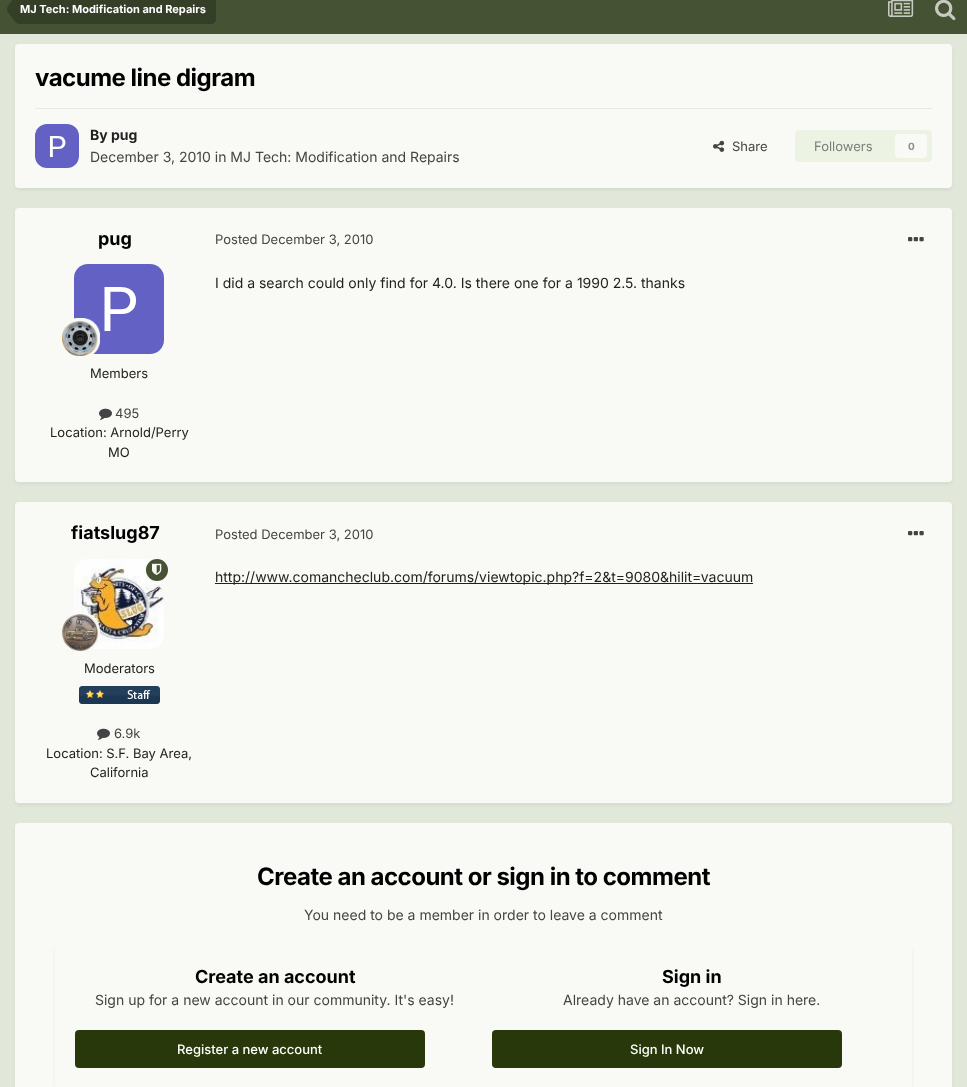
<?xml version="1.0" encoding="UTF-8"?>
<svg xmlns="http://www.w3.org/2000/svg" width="967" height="1087">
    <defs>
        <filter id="blur1" x="-50%" y="-200%" width="200%" height="500%"><feGaussianBlur stdDeviation="2"/></filter>
    </defs>
    <rect width="100%" height="100%" fill="#E1E7D9"/>
    <rect x="0" y="0" width="967" height="34" fill="#465234"/>
    <path d="M 20 -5 H 211 C 214 -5 216 -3 216 0 V 19 C 216 22 214 24 211 24 H 20 Z" fill="#353E27"/>
    <path d="M 20 9 V 24 C 15.5 24 13.5 19.5 11 16 C 9.5 14 7 12 7 9 Z M 20 9 H 7 C 7 6 9.5 4 11 2 C 13.5 -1.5 15.5 -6 20 -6 Z" fill="#353E27"/>
    <text x="20" y="13" font-family="Inter" font-size="11" font-weight="700" fill="#FFFFFF">MJ Tech: Modification and Repairs</text>
    <image x="888" y="0" width="26" height="17" href="img_01.png"/>
    <image x="935" y="0" width="21" height="21" href="img_02.png"/>
    <rect x="16" y="47" width="935" height="142" rx="3" fill="#2D3748" fill-opacity="0.1" filter="url(#blur1)"/>
    <rect x="15" y="44" width="937" height="144" rx="4" fill="#F9FAF5"/>
    <text x="35" y="86" font-family="Inter" font-size="24" font-weight="700" letter-spacing="-0.5" fill="#000000">vacume line digram</text>
    <rect x="35" y="108" width="897" height="1" fill="#E8E9E4"/>
    <image x="35" y="124" width="44" height="44" href="img_03.png"/>
    <text x="90" y="140" font-family="Inter" font-size="14" font-weight="700" fill="#222222">By pug</text>
    <text x="90" y="162" font-family="Inter" font-size="14" fill="#444444">December 3, 2010 in MJ Tech: Modification and Repairs</text>
    <image x="713" y="140" width="12" height="12" href="img_04.png"/>
    <text x="732" y="151" font-family="Inter" font-size="13" fill="#444444">Share</text>
    <rect x="795" y="130" width="137" height="32" rx="4" fill="#EDF3E2"/>
    <text x="814" y="151" font-family="Inter" font-size="13" fill="#7D7D7B">Followers</text>
    <rect x="895" y="134" width="32" height="24" rx="4" fill="#F9FAF5"/>
    <text x="908" y="150" font-family="Inter" font-size="10" font-weight="700" fill="#8E8E8C">0</text>
    <rect x="16" y="211" width="935" height="272" rx="3" fill="#2D3748" fill-opacity="0.1" filter="url(#blur1)"/>
    <rect x="15" y="208" width="937" height="274" rx="4" fill="#F9FAF5"/>
    <text x="98" y="245" font-family="Inter" font-size="18" font-weight="700" fill="#000000">pug</text>
    <image x="74" y="264" width="90" height="90" href="img_05.png"/>
    <image x="62" y="318" width="38" height="38" href="img_06.png"/>
    <text x="90" y="378" font-family="Inter" font-size="13" fill="#222222">Members</text>
    <image x="99" y="408" width="13" height="12" href="img_07.png"/>
    <text x="115" y="418" font-family="Inter" font-size="13" fill="#444444">495</text>
    <text x="50" y="437" font-family="Inter" font-size="13" fill="#222222">Location: Arnold/Perry</text>
    <text x="108" y="457" font-family="Inter" font-size="13" fill="#222222">MO</text>
    <text x="215" y="244" font-family="Inter" font-size="13" fill="#444444">Posted December 3, 2010</text>
    <image x="908" y="237" width="16" height="5" href="img_08.png"/>
    <text x="215" y="288" font-family="Inter" font-size="14" fill="#222222">I did a search could only find for 4.0. Is there one for a 1990 2.5. thanks</text>
    <rect x="16" y="505" width="935" height="299" rx="3" fill="#2D3748" fill-opacity="0.1" filter="url(#blur1)"/>
    <rect x="15" y="502" width="937" height="301" rx="4" fill="#F9FAF5"/>
    <text x="71" y="539" font-family="Inter" font-size="18" font-weight="700" fill="#000000">fiatslug87</text>
    <image x="74" y="559" width="90" height="90" href="img_10.png"/>
    <circle cx="157" cy="570" r="12" fill="#465234" stroke="#F9FAF5" stroke-width="2"/>
    <image x="152" y="563" width="10" height="12" href="img_09.png"/>
    <image x="62" y="612" width="38" height="39" href="img_11.png"/>
    <text x="84" y="673" font-family="Inter" font-size="13" fill="#222222">Moderators</text>
    <image x="79" y="686" width="81" height="18" href="img_12.png"/>
    <image x="97" y="728" width="13" height="12" href="img_07.png"/>
    <text x="114" y="738" font-family="Inter" font-size="13" fill="#444444">6.9k</text>
    <text x="46" y="758" font-family="Inter" font-size="13" fill="#222222">Location: S.F. Bay Area,</text>
    <text x="90" y="777" font-family="Inter" font-size="13" fill="#222222">California</text>
    <text x="215" y="539" font-family="Inter" font-size="13" fill="#444444">Posted December 3, 2010</text>
    <image x="908" y="531" width="16" height="5" href="img_08.png"/>
    <rect x="215" y="583" width="538" height="1" fill="#202121"/>
    <text x="215" y="582" font-family="Inter" font-size="14" fill="#222222">http://www.comancheclub.com/forums/viewtopic.php?f=2&amp;t=9080&amp;hilit=vacuum</text>
    <rect x="16" y="826" width="935" height="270" rx="3" fill="#2D3748" fill-opacity="0.1" filter="url(#blur1)"/>
    <rect x="15" y="823" width="937" height="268" rx="4" fill="#F9FAF5"/>
    <text x="257" y="885" font-family="Inter" font-size="24" font-weight="700" letter-spacing="-0.5" fill="#000000">Create an account or sign in to comment</text>
    <text x="304" y="920" font-family="Inter" font-size="14" fill="#444444">You need to be a member in order to leave a comment</text>
    <rect x="56" y="948" width="855" height="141" rx="3" fill="#2D3748" fill-opacity="0.1" filter="url(#blur1)"/>
    <rect x="55" y="945" width="857" height="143" rx="4" fill="#F9FAF5"/>
    <text x="195" y="983" font-family="Inter" font-size="18" font-weight="700" fill="#000000">Create an account</text>
    <text x="95" y="1005" font-family="Inter" font-size="14" fill="#444444">Sign up for a new account in our community. It's easy!</text>
    <rect x="75" y="1030" width="350" height="38" rx="4" fill="#28380A"/>
    <text x="177" y="1054" font-family="Inter" font-size="13" font-weight="500" fill="#FFFFFF">Register a new account</text>
    <text x="662" y="983" font-family="Inter" font-size="18" font-weight="700" fill="#000000">Sign in</text>
    <text x="563" y="1005" font-family="Inter" font-size="14" fill="#444444">Already have an account? Sign in here.</text>
    <rect x="492" y="1030" width="350" height="38" rx="4" fill="#28380A"/>
    <text x="630" y="1054" font-family="Inter" font-size="13" font-weight="500" fill="#FFFFFF">Sign In Now</text>
</svg>
